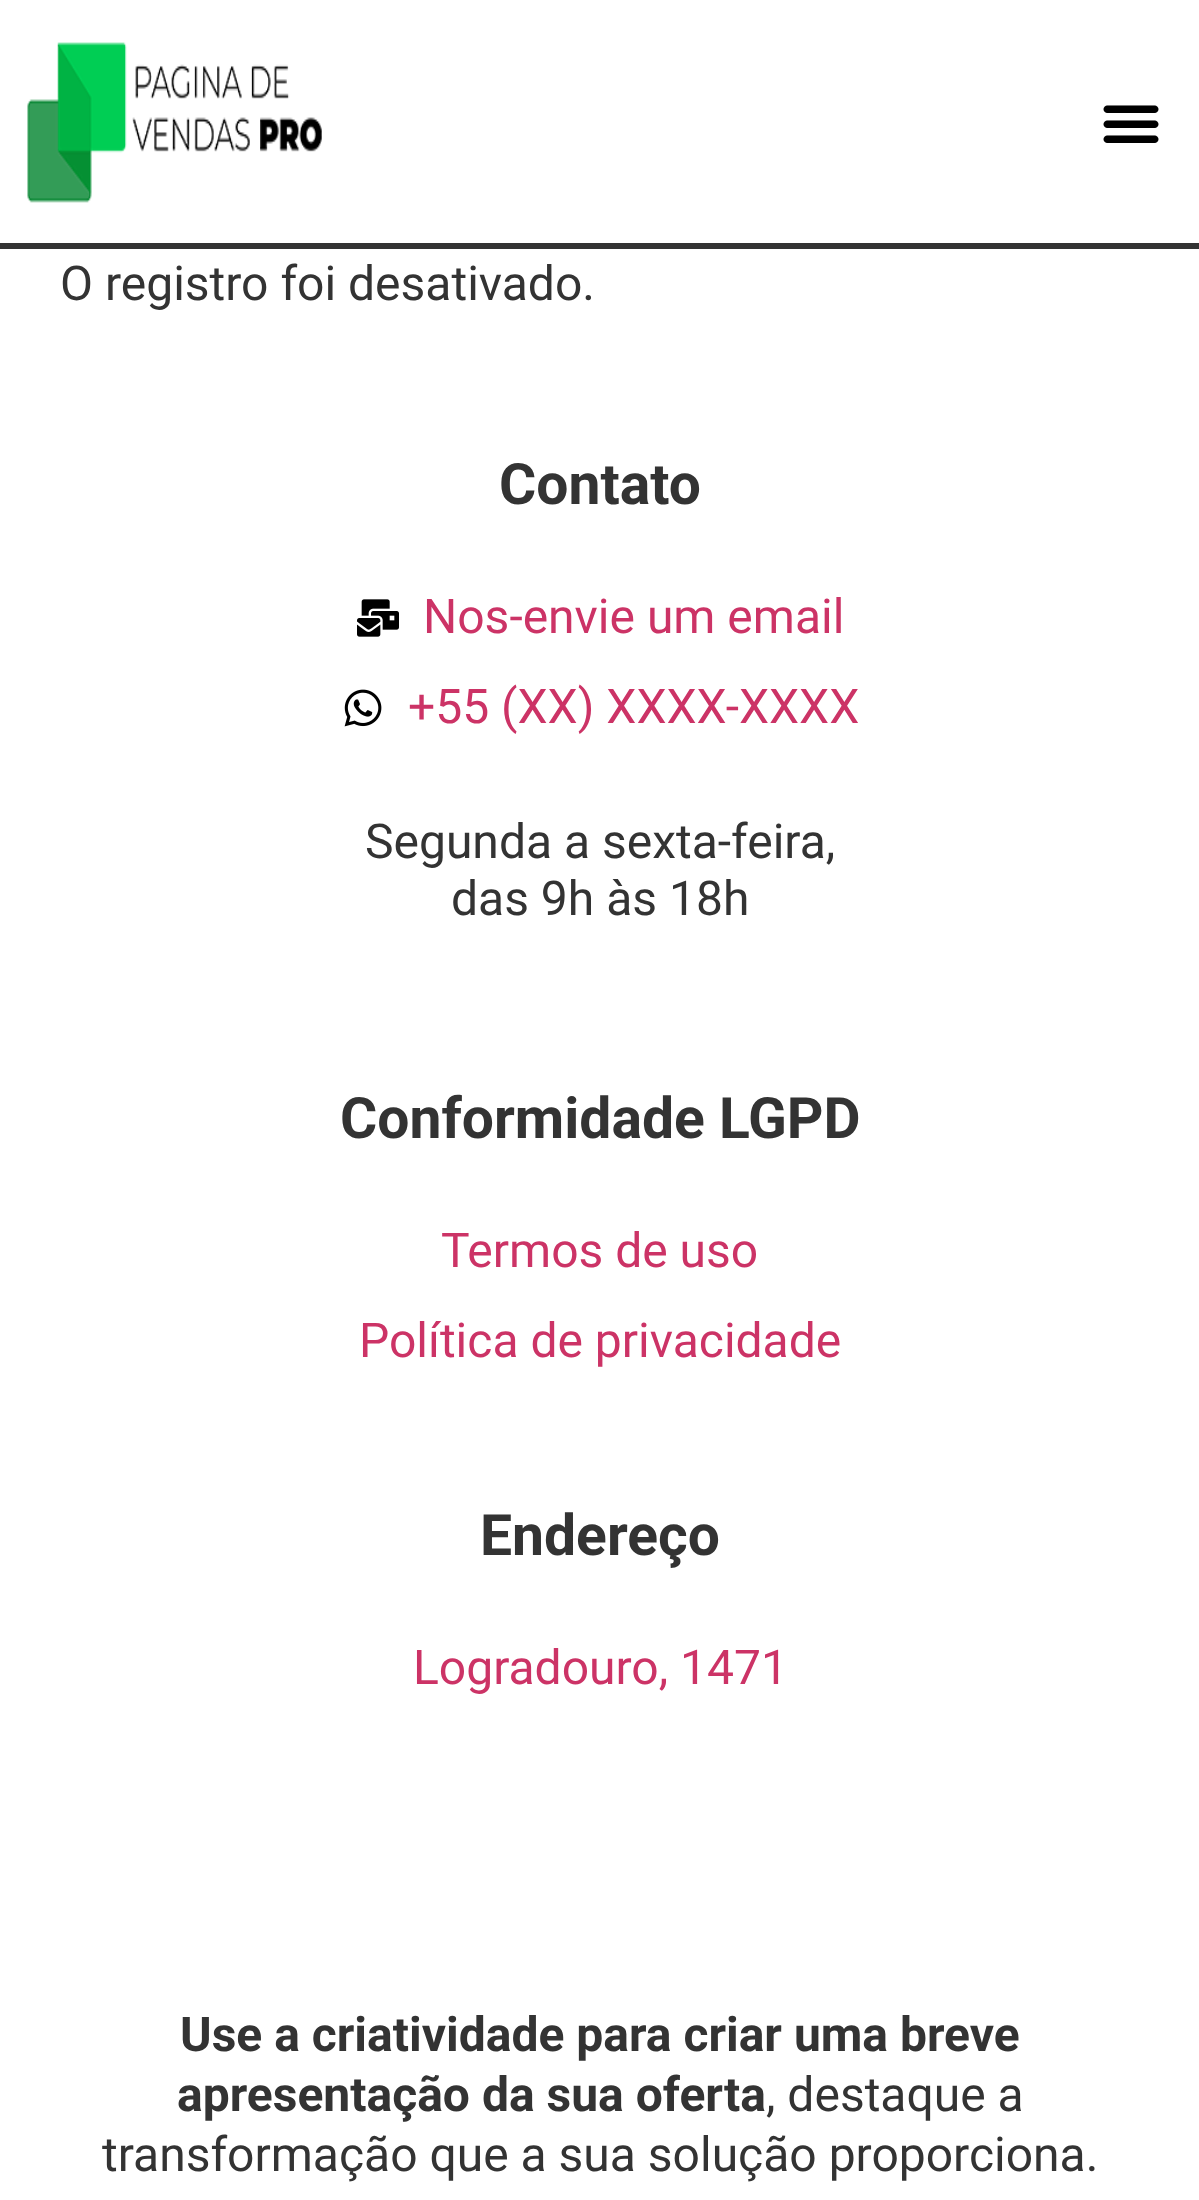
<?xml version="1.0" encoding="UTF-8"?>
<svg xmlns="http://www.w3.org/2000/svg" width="1199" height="2200">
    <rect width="100%" height="100%" fill="#FFFFFF"/>
    <rect x="0" y="243" width="1199" height="6" fill="#333333"/>
    <image x="27" y="42" width="295" height="161" href="img_01.png"/>
    <image x="1103" y="105" width="56" height="38" href="img_02.png"/>
    <text x="60" y="300" font-family="Roboto" font-size="48" fill="#333333">O registro foi desativado.</text>
    <text x="499" y="504" font-family="Roboto" font-size="57" font-weight="700" fill="#333333">Contato</text>
    <image x="357" y="599" width="42" height="38" href="img_03.png"/>
    <text x="423" y="633" font-family="Roboto" font-size="48" fill="#CC3366">Nos-envie um email</text>
    <image x="344" y="689" width="38" height="38" href="img_04.png"/>
    <text x="408" y="723" font-family="Roboto" font-size="48" fill="#CC3366">+55 (XX) XXXX-XXXX</text>
    <text x="365" y="858" font-family="Roboto" font-size="48" fill="#333333">Segunda a sexta-feira,</text>
    <text x="451" y="915" font-family="Roboto" font-size="48" fill="#333333">das 9h às 18h</text>
    <text x="340" y="1138" font-family="Roboto" font-size="57" font-weight="700" fill="#333333">Conformidade LGPD</text>
    <text x="441" y="1267" font-family="Roboto" font-size="48" fill="#CC3366">Termos de uso</text>
    <text x="359" y="1357" font-family="Roboto" font-size="48" fill="#CC3366">Política de privacidade</text>
    <text x="480" y="1555" font-family="Roboto" font-size="57" font-weight="700" fill="#333333">Endereço</text>
    <text x="413" y="1684" font-family="Roboto" font-size="48" fill="#CC3366">Logradouro, 1471</text>
    <text x="180" y="2051" font-family="Roboto" font-size="48" font-weight="700" fill="#333333">Use a criatividade para criar uma breve</text>
    <text x="177" y="2111" font-family="Roboto" font-size="48" font-weight="700" fill="#333333">apresentação da sua oferta</text>
    <text x="766" y="2111" font-family="Roboto" font-size="48" fill="#333333">, destaque a</text>
    <text x="102" y="2171" font-family="Roboto" font-size="48" fill="#333333">transformação que a sua solução proporciona.</text>
</svg>
